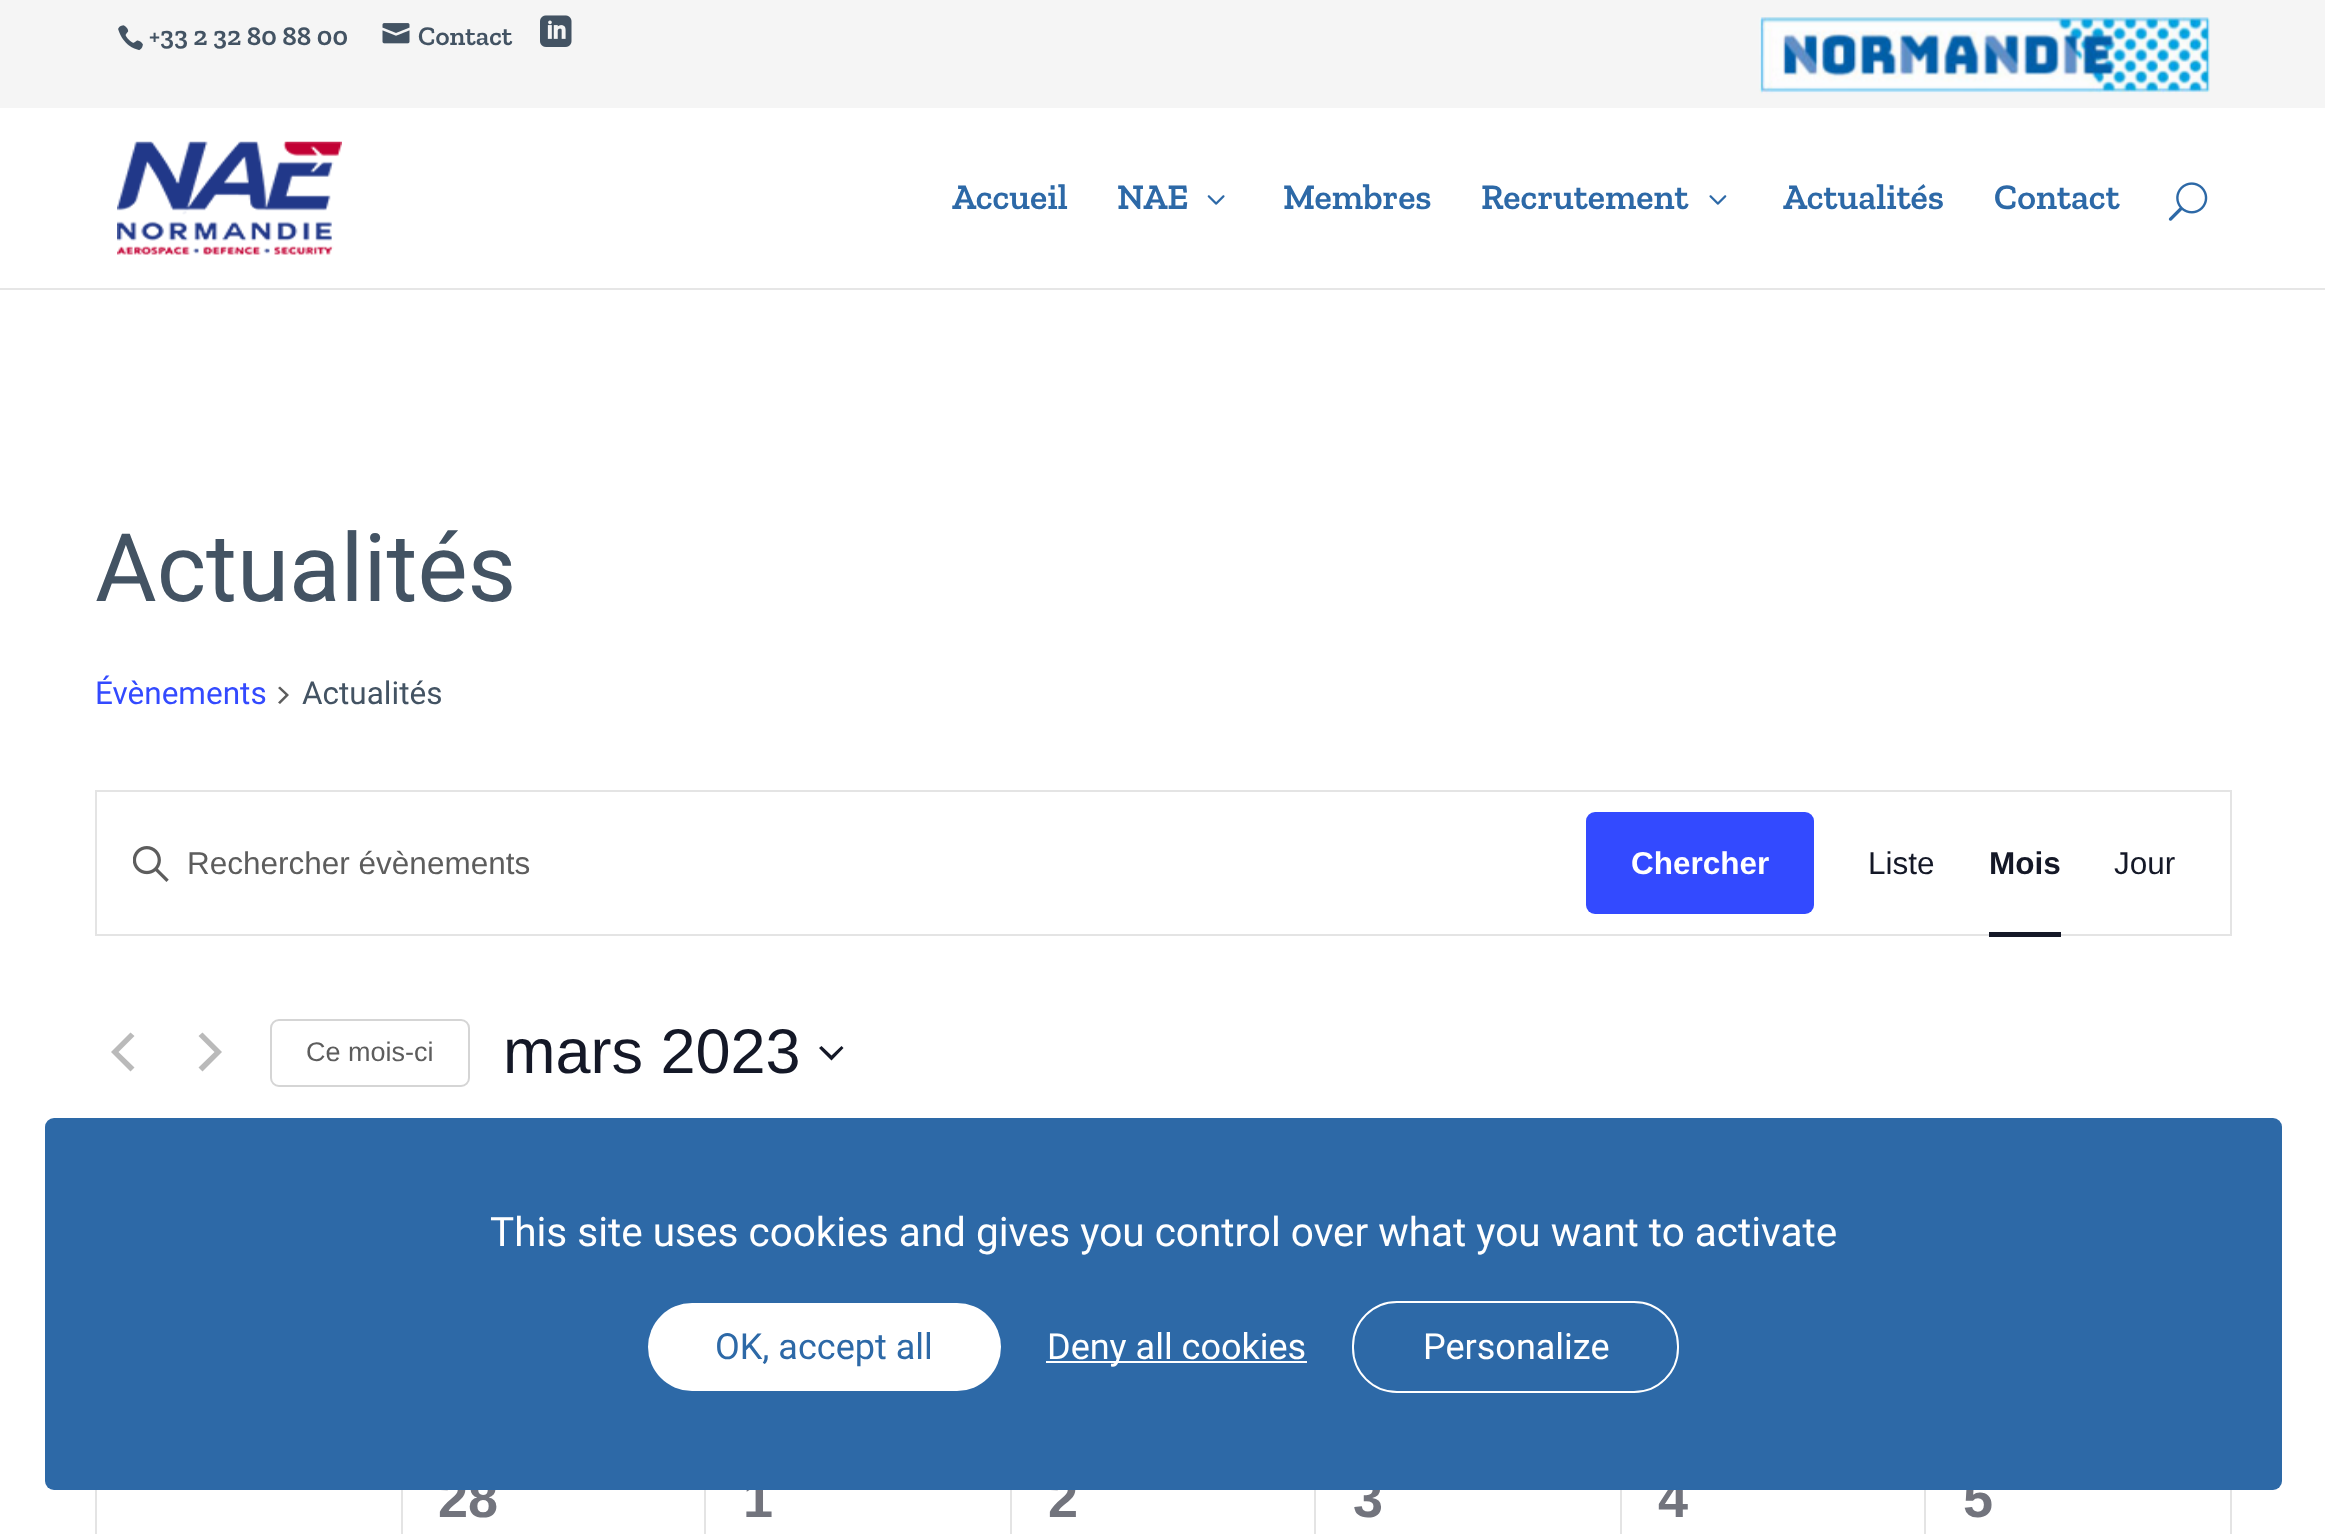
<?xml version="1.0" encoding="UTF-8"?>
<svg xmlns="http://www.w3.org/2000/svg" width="2325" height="1534">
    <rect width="100%" height="100%" fill="#FFFFFF"/>
    <rect x="0" y="0" width="2325" height="108" fill="#F5F5F5"/>
    <image x="118" y="25" width="25" height="26" href="img_01.png"/>
    <text x="149" y="45" font-family="Zilla Slab" font-size="27" font-weight="600" fill="#435363">+33 2 32 80 88 00</text>
    <image x="382" y="23" width="28" height="21" href="img_02.png"/>
    <text x="418" y="45" font-family="Zilla Slab" font-size="27" font-weight="600" fill="#435363">Contact</text>
    <image x="540" y="15" width="32" height="32" href="img_03.png"/>
    <image x="1759" y="17" width="451" height="77" href="img_04.png"/>
    <path d="M 0 288 V 290 H 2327 V 110 H 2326 V 288 Z" fill="#E6E6E6"/>
    <image x="117" y="141" width="225" height="114" href="img_05.png"/>
    <text x="952" y="209" font-family="Zilla Slab" font-size="36" font-weight="600" fill="#2D69A7">Accueil</text>
    <text x="1117" y="209" font-family="Zilla Slab" font-size="36" font-weight="600" fill="#2D69A7">NAE</text>
    <image x="1207" y="195" width="18" height="10" href="img_06.png"/>
    <text x="1283" y="209" font-family="Zilla Slab" font-size="36" font-weight="600" fill="#2D69A7">Membres</text>
    <text x="1481" y="209" font-family="Zilla Slab" font-size="36" font-weight="600" fill="#2D69A7">Recrutement</text>
    <image x="1709" y="195" width="18" height="10" href="img_07.png"/>
    <text x="1783" y="209" font-family="Zilla Slab" font-size="36" font-weight="600" fill="#2D69A7">Actualités</text>
    <text x="1994" y="209" font-family="Zilla Slab" font-size="36" font-weight="600" fill="#2D69A7">Contact</text>
    <image x="2168" y="182" width="40" height="39" href="img_08.png"/>
    <text x="95" y="601" font-family="Roboto" font-size="94.5" fill="#435363">Actualités</text>
    <text x="95" y="704" font-family="Roboto" font-size="31.5" fill="#334AFF">Évènements</text>
    <path d="M 278 688 L 280 686.5 L 289 695 L 280 704 L 278 702.5 L 285.5 695 Z" fill="#5D5D5D"/>
    <text x="302" y="704" font-family="Roboto" font-size="31.5" fill="#435363">Actualités</text>
    <rect x="96" y="791" width="2135" height="144" fill="none" stroke="#E4E4E4" stroke-width="2"/>
    <image x="133" y="846" width="36" height="36" href="img_09.png"/>
    <text x="187" y="874" font-family="Liberation Sans" font-size="31.5" fill="#5D5D5D">Rechercher évènements</text>
    <rect x="1586" y="812" width="228" height="102" rx="9" fill="#334AFF"/>
    <text x="1631" y="874" font-family="Liberation Sans" font-size="31.5" font-weight="700" fill="#FFFFFF">Chercher</text>
    <text x="1868" y="874" font-family="Liberation Sans" font-size="31.5" fill="#141827">Liste</text>
    <text x="1989" y="874" font-family="Liberation Sans" font-size="31.5" font-weight="700" fill="#141827">Mois</text>
    <rect x="1989" y="932" width="72" height="5" fill="#141827"/>
    <text x="2114" y="874" font-family="Liberation Sans" font-size="31.5" fill="#141827">Jour</text>
    <path d="M 134.5 1067.5 L 130.5 1071.5 L 111 1052 L 130.5 1032.5 L 134.5 1036 L 118.5 1052 Z" fill="#BABABA"/>
    <path d="M 198.5 1036 L 202.5 1032.5 L 222 1052 L 202.5 1071.5 L 198.5 1067.5 L 214.5 1052 Z" fill="#BABABA"/>
    <rect x="271" y="1020" width="198" height="66" rx="8" fill="none" stroke="#D5D5D5" stroke-width="2"/>
    <text x="306" y="1061" font-family="Liberation Sans" font-size="27" fill="#5D5D5D">Ce mois-ci</text>
    <text x="503" y="1073" font-family="Liberation Sans" font-size="63" fill="#141827">mars 2023</text>
    <path d="M 821.5 1046 L 831.5 1055.5 L 841.5 1046 L 843.5 1048 L 831.5 1060.5 L 819 1048 Z" fill="#141827" fill-rule="evenodd"/>
    <rect x="95" y="1490" width="2" height="44" fill="#E4E4E4"/>
    <rect x="401" y="1490" width="2" height="44" fill="#E4E4E4"/>
    <rect x="704" y="1490" width="2" height="44" fill="#E4E4E4"/>
    <text x="438" y="1517" font-family="Liberation Sans" font-size="54" font-weight="700" fill="#72747D">28</text>
    <rect x="1010" y="1490" width="2" height="44" fill="#E4E4E4"/>
    <text x="743" y="1517" font-family="Liberation Sans" font-size="54" font-weight="700" fill="#72747D">1</text>
    <rect x="1314" y="1490" width="2" height="44" fill="#E4E4E4"/>
    <text x="1048" y="1517" font-family="Liberation Sans" font-size="54" font-weight="700" fill="#72747D">2</text>
    <rect x="1620" y="1490" width="2" height="44" fill="#E4E4E4"/>
    <text x="1353" y="1517" font-family="Liberation Sans" font-size="54" font-weight="700" fill="#72747D">3</text>
    <rect x="1924" y="1490" width="2" height="44" fill="#E4E4E4"/>
    <text x="1658" y="1517" font-family="Liberation Sans" font-size="54" font-weight="700" fill="#72747D">4</text>
    <rect x="2230" y="1490" width="2" height="44" fill="#E4E4E4"/>
    <text x="1963" y="1517" font-family="Liberation Sans" font-size="54" font-weight="700" fill="#72747D">5</text>
    <rect x="45" y="1118" width="2237" height="372" rx="9" fill="#2D69A7"/>
    <text x="490" y="1246" font-family="Roboto" font-size="40.5" fill="#FFFFFF">This site uses cookies and gives you control over what you want to activate</text>
    <rect x="648" y="1303" width="353" height="88" rx="44" fill="#FFFFFF"/>
    <text x="715" y="1359" font-family="Roboto" font-size="36" fill="#2D69A7">OK, accept all</text>
    <rect x="1046" y="1361" width="261" height="2" fill="#FFFFFF"/>
    <text x="1047" y="1359" font-family="Roboto" font-size="36" fill="#FFFFFF">Deny all cookies</text>
    <rect x="1353" y="1302" width="325" height="90" rx="44" fill="none" stroke="#FFFFFF" stroke-width="2"/>
    <text x="1423" y="1359" font-family="Roboto" font-size="36" fill="#FFFFFF">Personalize</text>
</svg>
